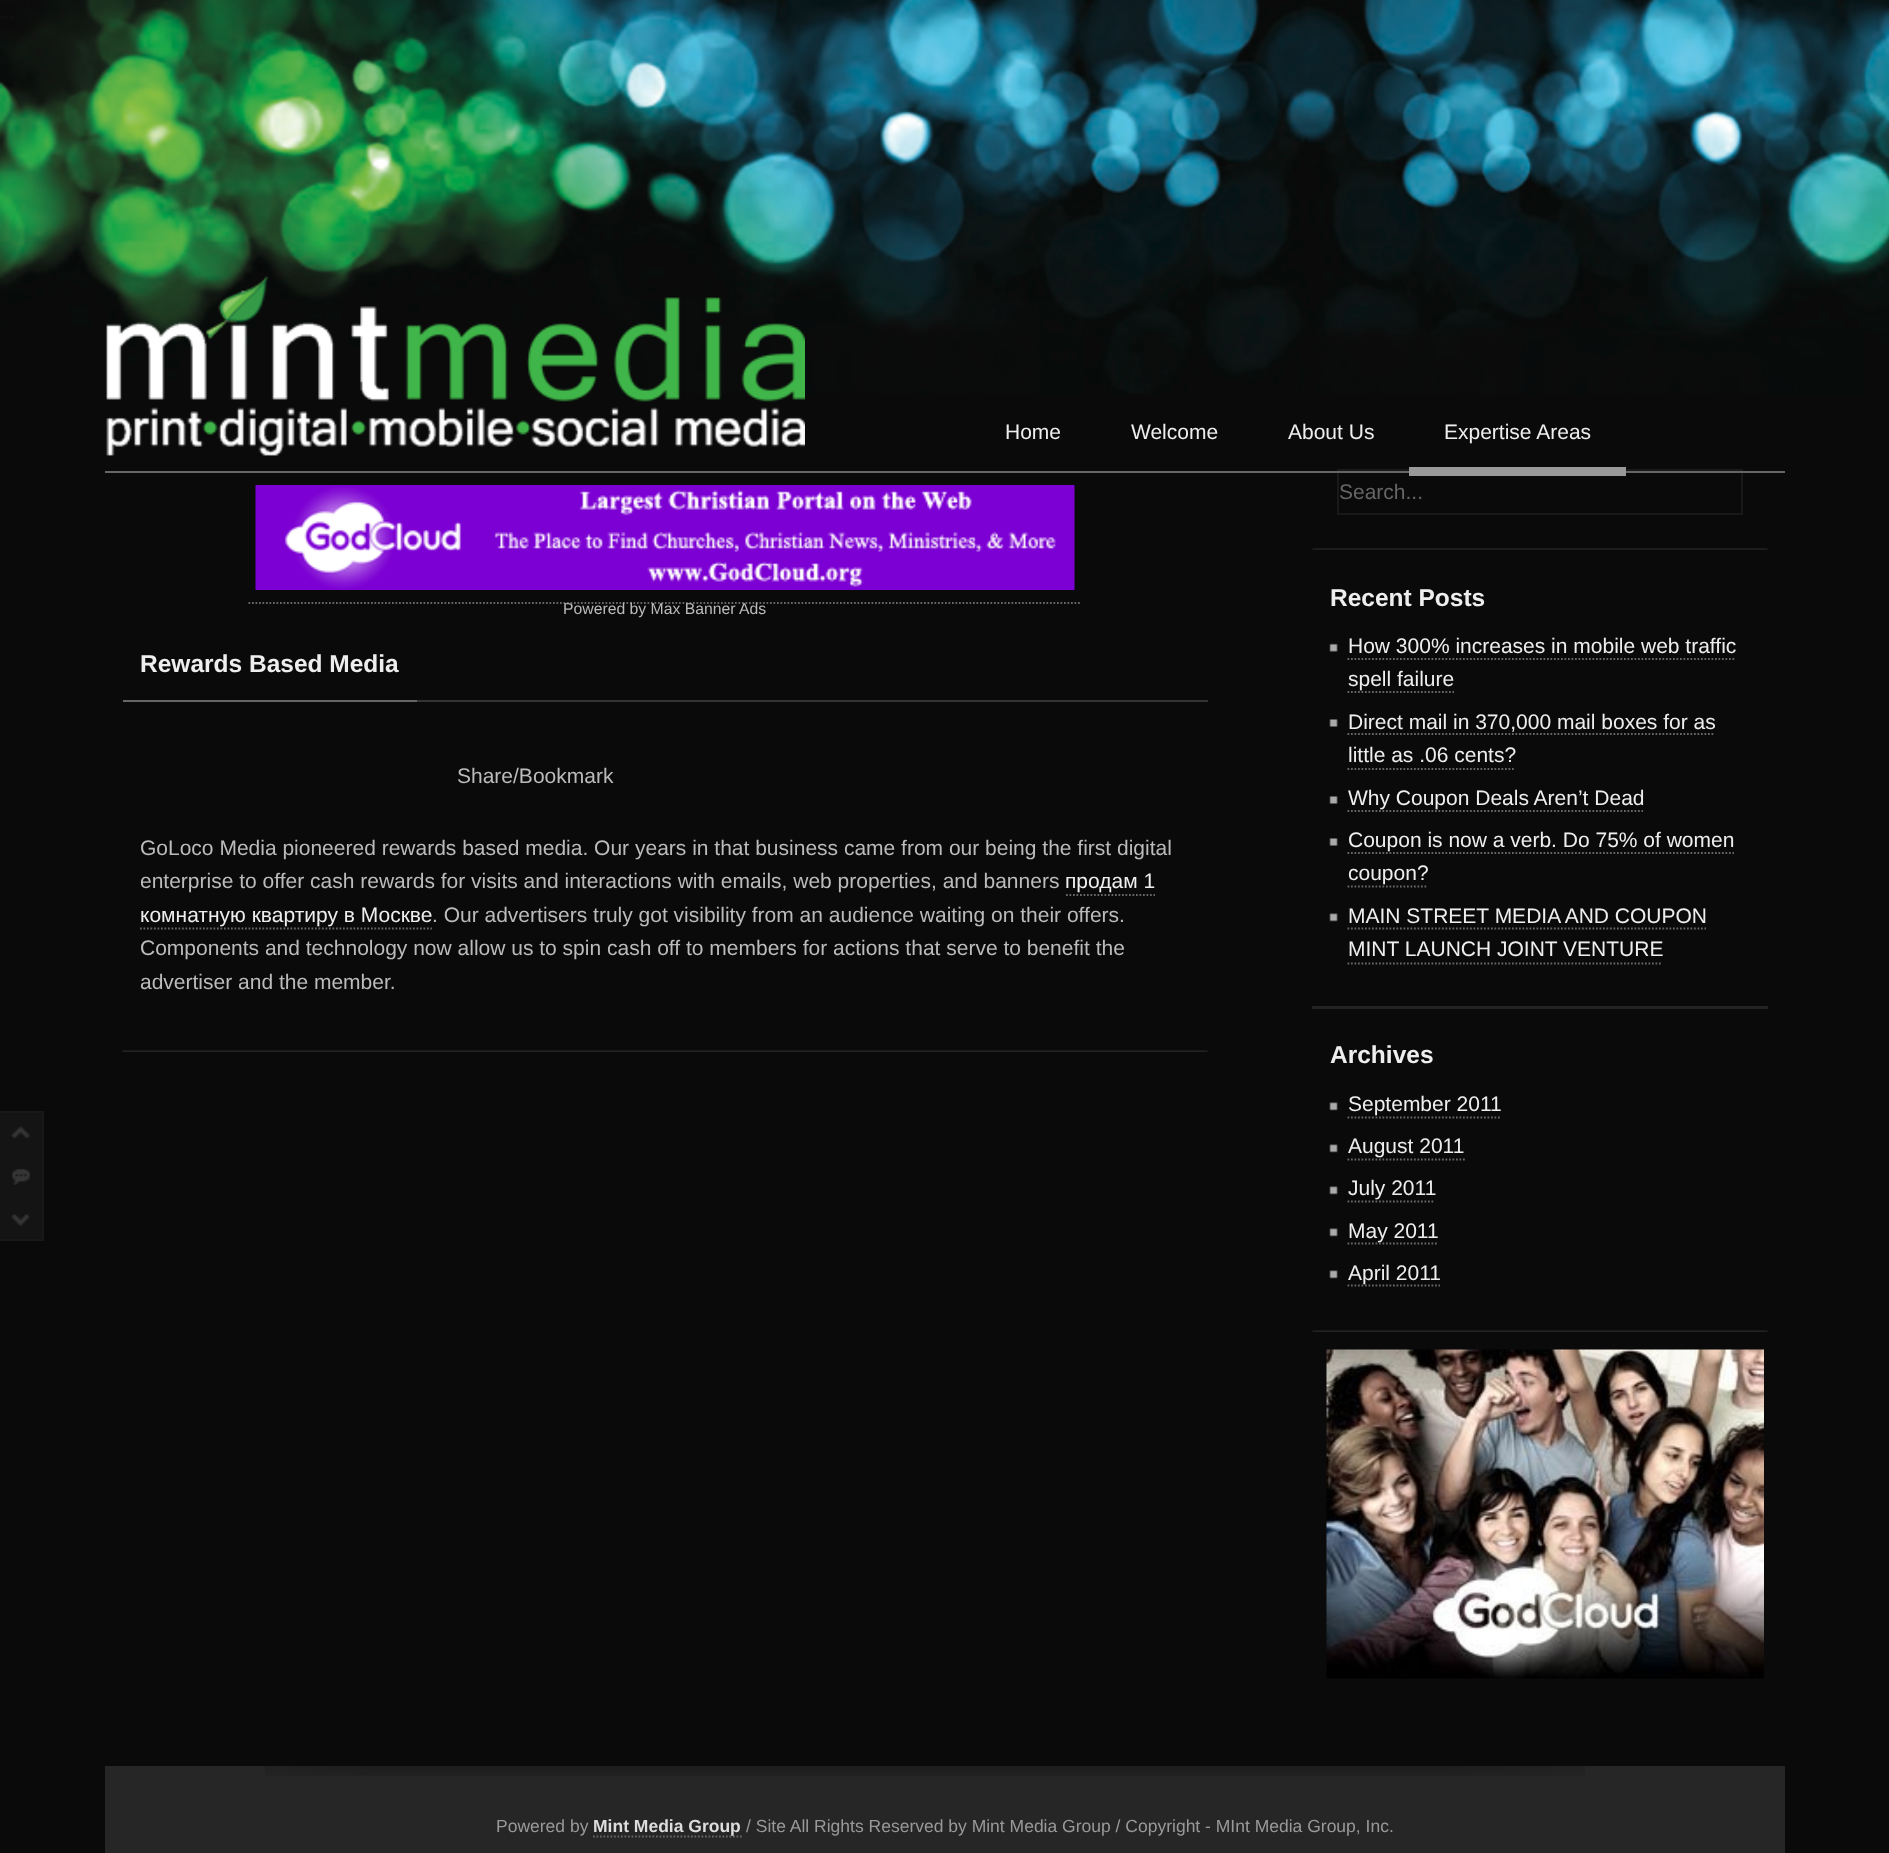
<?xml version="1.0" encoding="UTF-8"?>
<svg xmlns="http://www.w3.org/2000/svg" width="1889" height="1853">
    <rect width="100%" height="100%" fill="#0A0A0A"/>
    <image x="0" y="0" width="1889" height="394" href="img_01.png"/>
    <rect x="0" y="1113" width="42" height="126" fill="#141414"/>
    <rect x="0" y="1111" width="44" height="2" fill="#191919"/>
    <rect x="42" y="1111" width="2" height="130" fill="#191919"/>
    <rect x="0" y="1239" width="44" height="2" fill="#191919"/>
    <image x="11" y="1126" width="19" height="13" href="img_02.png"/>
    <image x="12" y="1169" width="18" height="16" href="img_03.png"/>
    <image x="11" y="1214" width="19" height="13" href="img_04.png"/>
    <image x="106" y="276" width="699" height="180" href="img_05.png"/>
    <rect x="1338" y="470" width="404" height="44" fill="none" stroke="#191919" stroke-width="2"/>
    <rect x="105" y="471" width="1680" height="2" fill="#666666"/>
    <text x="1005" y="439" font-family="Liberation Sans" font-size="21" fill="#EEEEEE">Home</text>
    <text x="1131" y="439" font-family="Liberation Sans" font-size="21" fill="#EEEEEE">Welcome</text>
    <text x="1288" y="439" font-family="Liberation Sans" font-size="21" fill="#EEEEEE">About Us</text>
    <rect x="1409" y="467" width="217" height="9" fill="#999999"/>
    <text x="1444" y="439" font-family="Liberation Sans" font-size="21" fill="#EEEEEE">Expertise Areas</text>
    <image x="255" y="485" width="820" height="105" href="img_06.png"/>
    <path d="M 248.5 603 H 1081.5" fill="none" stroke="#666666" stroke-width="1.8" stroke-dasharray="1.75 1.75"/>
    <text x="563" y="614" font-family="Liberation Sans" font-size="15.75" fill="#BBBBBB">Powered by Max Banner Ads</text>
    <image x="122" y="1050" width="1086" height="2" href="img_07.png"/>
    <rect x="417" y="700" width="791" height="2" fill="#333333"/>
    <rect x="123" y="700" width="294" height="2" fill="#666666"/>
    <text x="140" y="672" font-family="Liberation Sans" font-size="24.5" font-weight="700" fill="#EEEEEE">Rewards Based Media</text>
    <text x="457" y="783" font-family="Liberation Sans" font-size="21" fill="#BBBBBB">Share/Bookmark</text>
    <text font-family="Liberation Sans" font-size="21" fill="#BBBBBB">
        <tspan x="140" y="855">GoLoco Media pioneered rewards based media. Our years in that business came from our being the first digital</tspan>
        <tspan x="140" y="888">enterprise to offer cash rewards for visits and interactions with emails, web properties, and banners</tspan>
    </text>
    <text x="1065" y="888" font-family="Liberation Sans" font-size="21" fill="#EEEEEE">продам 1</text>
    <path d="M 1066 895 H 1155" fill="none" stroke="#666666" stroke-width="1.8" stroke-dasharray="1.75 1.75"/>
    <text x="140" y="922" font-family="Liberation Sans" font-size="21" fill="#EEEEEE">комнатную квартиру в Москве</text>
    <path d="M 140 928.5 H 432" fill="none" stroke="#666666" stroke-width="1.8" stroke-dasharray="1.75 1.75"/>
    <text x="432" y="922" font-family="Liberation Sans" font-size="21" fill="#BBBBBB">. Our advertisers truly got visibility from an audience waiting on their offers.</text>
    <text font-family="Liberation Sans" font-size="21" fill="#BBBBBB">
        <tspan x="140" y="955">Components and technology now allow us to spin cash off to members for actions that serve to benefit the</tspan>
        <tspan x="140" y="989">advertiser and the member.</tspan>
    </text>
    <image x="1312" y="548" width="456" height="2" href="img_08.png"/>
    <text x="1339" y="499" font-family="Liberation Sans" font-size="21" fill="#666666">Search...</text>
    <rect x="1312" y="1006" width="456" height="3" fill="#232323"/>
    <text x="1330" y="606" font-family="Liberation Sans" font-size="24.5" font-weight="700" fill="#EEEEEE">Recent Posts</text>
    <image x="1329" y="643" width="9" height="9" href="img_09.png"/>
    <text x="1348" y="653" font-family="Liberation Sans" font-size="21" fill="#EEEEEE">How 300% increases in mobile web traffic</text>
    <path d="M 1347.5 659 H 1736" fill="none" stroke="#666666" stroke-width="1.8" stroke-dasharray="1.75 1.75"/>
    <text x="1348" y="686" font-family="Liberation Sans" font-size="21" fill="#EEEEEE">spell failure</text>
    <path d="M 1347.5 692 H 1454" fill="none" stroke="#666666" stroke-width="1.8" stroke-dasharray="1.75 1.75"/>
    <image x="1329" y="719" width="9" height="8" href="img_10.png"/>
    <text x="1348" y="729" font-family="Liberation Sans" font-size="21" fill="#EEEEEE">Direct mail in 370,000 mail boxes for as</text>
    <path d="M 1347.5 734 H 1715" fill="none" stroke="#666666" stroke-width="1.8" stroke-dasharray="1.75 1.75"/>
    <text x="1348" y="762" font-family="Liberation Sans" font-size="21" fill="#EEEEEE">little as .06 cents?</text>
    <path d="M 1347.5 769 H 1515.5" fill="none" stroke="#666666" stroke-width="1.8" stroke-dasharray="1.75 1.75"/>
    <image x="1329" y="796" width="9" height="8" href="img_10.png"/>
    <text x="1348" y="805" font-family="Liberation Sans" font-size="21" fill="#EEEEEE">Why Coupon Deals Aren’t Dead</text>
    <path d="M 1347.5 811 H 1643" fill="none" stroke="#666666" stroke-width="1.8" stroke-dasharray="1.75 1.75"/>
    <image x="1329" y="838" width="9" height="8" href="img_10.png"/>
    <text x="1348" y="847" font-family="Liberation Sans" font-size="21" fill="#EEEEEE">Coupon is now a verb. Do 75% of women</text>
    <path d="M 1347.5 853 H 1734" fill="none" stroke="#666666" stroke-width="1.8" stroke-dasharray="1.75 1.75"/>
    <text x="1348" y="880" font-family="Liberation Sans" font-size="21" fill="#EEEEEE">coupon?</text>
    <path d="M 1347.5 886.5 H 1428" fill="none" stroke="#666666" stroke-width="1.8" stroke-dasharray="1.75 1.75"/>
    <image x="1329" y="913" width="9" height="9" href="img_11.png"/>
    <text x="1348" y="923" font-family="Liberation Sans" font-size="21" fill="#EEEEEE">MAIN STREET MEDIA AND COUPON</text>
    <path d="M 1347.5 928.5 H 1706" fill="none" stroke="#666666" stroke-width="1.8" stroke-dasharray="1.75 1.75"/>
    <text x="1348" y="956" font-family="Liberation Sans" font-size="21" fill="#EEEEEE">MINT LAUNCH JOINT VENTURE</text>
    <path d="M 1347.5 963.5 H 1662.5" fill="none" stroke="#666666" stroke-width="1.8" stroke-dasharray="1.75 1.75"/>
    <image x="1312" y="1330" width="456" height="2" href="img_12.png"/>
    <text x="1330" y="1063" font-family="Liberation Sans" font-size="24.5" font-weight="700" fill="#EEEEEE">Archives</text>
    <image x="1329" y="1102" width="9" height="9" href="img_11.png"/>
    <text x="1348" y="1111" font-family="Liberation Sans" font-size="21" fill="#EEEEEE">September 2011</text>
    <path d="M 1347.5 1117.5 H 1501.5" fill="none" stroke="#666666" stroke-width="1.8" stroke-dasharray="1.75 1.75"/>
    <image x="1329" y="1144" width="9" height="9" href="img_11.png"/>
    <text x="1348" y="1153" font-family="Liberation Sans" font-size="21" fill="#EEEEEE">August 2011</text>
    <path d="M 1347.5 1159.5 H 1465" fill="none" stroke="#666666" stroke-width="1.8" stroke-dasharray="1.75 1.75"/>
    <image x="1329" y="1186" width="9" height="9" href="img_11.png"/>
    <text x="1348" y="1195" font-family="Liberation Sans" font-size="21" fill="#EEEEEE">July 2011</text>
    <path d="M 1347.5 1201.5 H 1435" fill="none" stroke="#666666" stroke-width="1.8" stroke-dasharray="1.75 1.75"/>
    <image x="1329" y="1228" width="9" height="9" href="img_11.png"/>
    <path d="M 1347.5 1243.5 H 1438.5" fill="none" stroke="#666666" stroke-width="1.8" stroke-dasharray="1.75 1.75"/>
    <text x="1348" y="1238" font-family="Liberation Sans" font-size="21" fill="#EEEEEE">May 2011</text>
    <image x="1329" y="1270" width="9" height="9" href="img_11.png"/>
    <path d="M 1347.5 1285.5 H 1440" fill="none" stroke="#666666" stroke-width="1.8" stroke-dasharray="1.75 1.75"/>
    <text x="1348" y="1280" font-family="Liberation Sans" font-size="21" fill="#EEEEEE">April 2011</text>
    <image x="1326" y="1349" width="438" height="330" href="img_13.png"/>
    <rect x="105" y="1766" width="1680" height="87" fill="#262626"/>
    <image x="265" y="1766" width="1320" height="10" href="img_14.png"/>
    <text x="496" y="1832" font-family="Liberation Sans" font-size="17.5" fill="#999999">Powered by</text>
    <path d="M 593 1836.5 H 742" fill="none" stroke="#666666" stroke-width="1.8" stroke-dasharray="1.75 1.75"/>
    <text x="593" y="1832" font-family="Liberation Sans" font-size="17.5" font-weight="700" fill="#DDDDDD">Mint Media Group</text>
    <text x="746" y="1832" font-family="Liberation Sans" font-size="17.5" fill="#999999">/ Site All Rights Reserved by Mint Media Group / Copyright - MInt Media Group, Inc.</text>
</svg>
